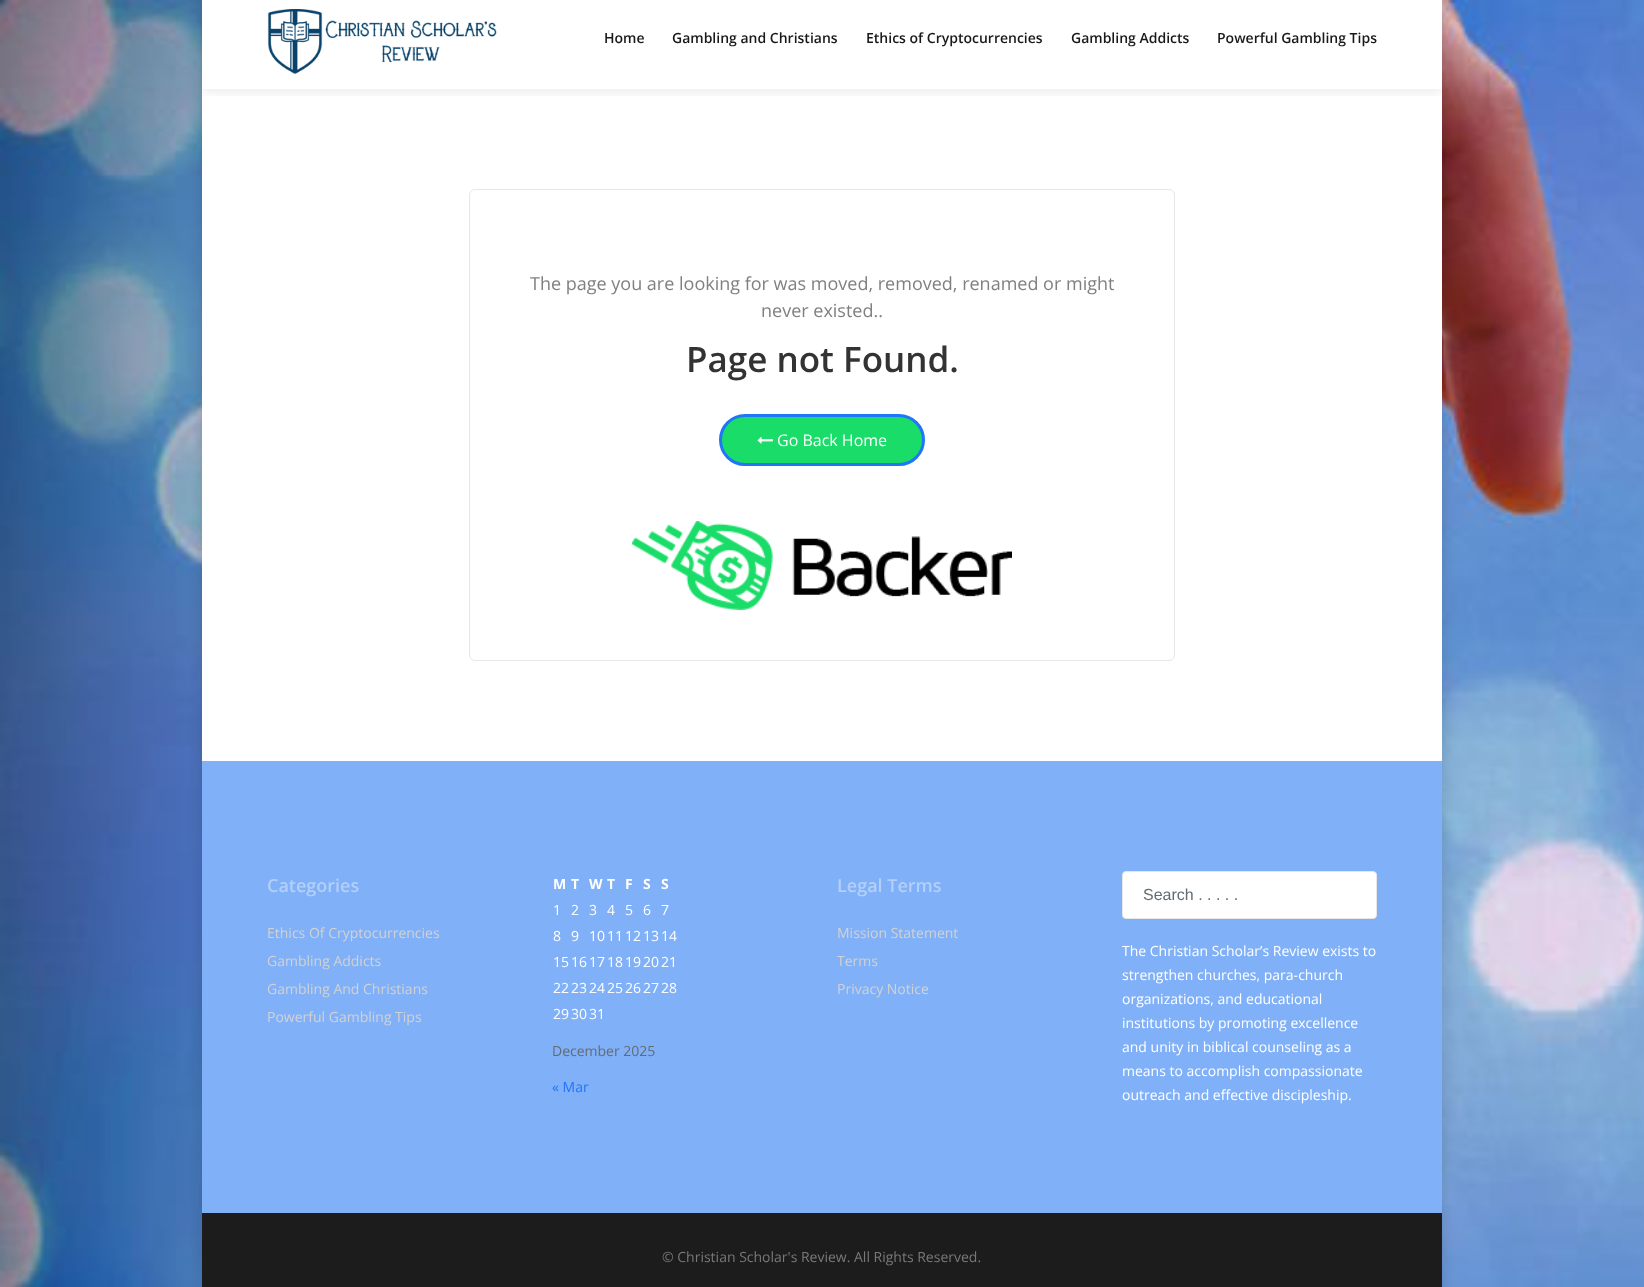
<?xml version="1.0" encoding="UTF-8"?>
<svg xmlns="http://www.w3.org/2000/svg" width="1644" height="1287">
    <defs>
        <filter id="blur1" x="-50%" y="-200%" width="200%" height="500%"><feGaussianBlur stdDeviation="7.5"/></filter>
        <clipPath id="clip1"><rect x="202" y="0" width="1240" height="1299"/></clipPath>
        <clipPath id="clip2"><rect x="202" y="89" width="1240" height="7"/></clipPath>
        <filter id="blur2" x="-50%" y="-200%" width="200%" height="500%"><feGaussianBlur stdDeviation="5"/></filter>
    </defs>
    <rect width="100%" height="100%" fill="#FFFFFF"/>
    <image x="0" y="0" width="1644" height="1287" href="img_01.png"/>
    <rect x="202" y="-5" width="1240" height="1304" fill="#000000" fill-opacity="0.15" filter="url(#blur1)"/>
    <rect x="202" y="0" width="1240" height="761" fill="#FFFFFF"/>
    <g clip-path="url(#clip1)">
        <g clip-path="url(#clip2)">
            <rect x="202" y="0" width="1240" height="94" fill="#000000" fill-opacity="0.06" filter="url(#blur2)"/>
        </g>
    </g>
    <image x="267" y="9" width="230" height="66" href="img_02.png"/>
    <text x="604" y="43" font-family="Open Sans" font-size="14" font-weight="600" fill="#191919">Home</text>
    <text x="672" y="43" font-family="Open Sans" font-size="14" font-weight="600" fill="#191919">Gambling and Christians</text>
    <text x="866" y="43" font-family="Open Sans" font-size="14" font-weight="600" fill="#191919">Ethics of Cryptocurrencies</text>
    <text x="1071" y="43" font-family="Open Sans" font-size="14" font-weight="600" fill="#191919">Gambling Addicts</text>
    <text x="1217" y="43" font-family="Open Sans" font-size="14" font-weight="600" fill="#191919">Powerful Gambling Tips</text>
    <rect x="469.5" y="189.5" width="705" height="471" rx="5.5" fill="none" stroke="#E7E7E7"/>
    <text x="530" y="290" font-family="Open Sans" font-size="18" fill="#808080">The page you are looking for was moved, removed, renamed or might</text>
    <text x="761" y="317" font-family="Open Sans" font-size="18" fill="#808080">never existed..</text>
    <text x="686" y="372" font-family="Open Sans" font-size="35" font-weight="600" fill="#333333">Page not Found.</text>
    <rect x="720.5" y="415.5" width="203" height="49" rx="24.5" fill="#1ADC68" stroke="#2076F7" stroke-width="3"/>
    <image x="757" y="436" width="16" height="8" href="img_03.png"/>
    <text x="777" y="446" font-family="Open Sans" font-size="16" fill="#FFFFFF">Go Back Home</text>
    <image x="632" y="521" width="380" height="89" href="img_04.png"/>
    <rect x="202" y="761" width="1240" height="452" fill="#80B0F7"/>
    <text x="267" y="892" font-family="Open Sans" font-size="18" font-weight="600" fill="#B3D0FA">Categories</text>
    <text x="267" y="938" font-family="Open Sans" font-size="14" fill="#D2D2D2">Ethics Of Cryptocurrencies</text>
    <text x="267" y="966" font-family="Open Sans" font-size="14" fill="#D2D2D2">Gambling Addicts</text>
    <text x="267" y="994" font-family="Open Sans" font-size="14" fill="#D2D2D2">Gambling And Christians</text>
    <text x="267" y="1022" font-family="Open Sans" font-size="14" fill="#D2D2D2">Powerful Gambling Tips</text>
    <text x="553" y="889" font-family="Open Sans" font-size="14" font-weight="700" fill="#FFFFFF">M</text>
    <text x="571" y="889" font-family="Open Sans" font-size="14" font-weight="700" fill="#FFFFFF">T</text>
    <text x="589" y="889" font-family="Open Sans" font-size="14" font-weight="700" fill="#FFFFFF">W</text>
    <text x="607" y="889" font-family="Open Sans" font-size="14" font-weight="700" fill="#FFFFFF">T</text>
    <text x="625" y="889" font-family="Open Sans" font-size="14" font-weight="700" fill="#FFFFFF">F</text>
    <text x="643" y="889" font-family="Open Sans" font-size="14" font-weight="700" fill="#FFFFFF">S</text>
    <text x="661" y="889" font-family="Open Sans" font-size="14" font-weight="700" fill="#FFFFFF">S</text>
    <text x="553" y="915" font-family="Open Sans" font-size="14" fill="#FFFFFF">1</text>
    <text x="571" y="915" font-family="Open Sans" font-size="14" fill="#FFFFFF">2</text>
    <text x="589" y="915" font-family="Open Sans" font-size="14" fill="#FFFFFF">3</text>
    <text x="607" y="915" font-family="Open Sans" font-size="14" fill="#FFFFFF">4</text>
    <text x="625" y="915" font-family="Open Sans" font-size="14" fill="#FFFFFF">5</text>
    <text x="643" y="915" font-family="Open Sans" font-size="14" fill="#FFFFFF">6</text>
    <text x="661" y="915" font-family="Open Sans" font-size="14" fill="#FFFFFF">7</text>
    <text x="553" y="941" font-family="Open Sans" font-size="14" fill="#FFFFFF">8</text>
    <text x="571" y="941" font-family="Open Sans" font-size="14" fill="#FFFFFF">9</text>
    <text x="589" y="941" font-family="Open Sans" font-size="14" fill="#FFFFFF">10</text>
    <text x="607" y="941" font-family="Open Sans" font-size="14" fill="#FFFFFF">11</text>
    <text x="625" y="941" font-family="Open Sans" font-size="14" fill="#FFFFFF">12</text>
    <text x="643" y="941" font-family="Open Sans" font-size="14" fill="#FFFFFF">13</text>
    <text x="661" y="941" font-family="Open Sans" font-size="14" fill="#FFFFFF">14</text>
    <text x="553" y="967" font-family="Open Sans" font-size="14" fill="#FFFFFF">15</text>
    <text x="571" y="967" font-family="Open Sans" font-size="14" fill="#FFFFFF">16</text>
    <text x="589" y="967" font-family="Open Sans" font-size="14" fill="#FFFFFF">17</text>
    <text x="607" y="967" font-family="Open Sans" font-size="14" fill="#FFFFFF">18</text>
    <text x="625" y="967" font-family="Open Sans" font-size="14" fill="#FFFFFF">19</text>
    <text x="643" y="967" font-family="Open Sans" font-size="14" fill="#FFFFFF">20</text>
    <text x="661" y="967" font-family="Open Sans" font-size="14" fill="#FFFFFF">21</text>
    <text x="553" y="993" font-family="Open Sans" font-size="14" fill="#FFFFFF">22</text>
    <text x="571" y="993" font-family="Open Sans" font-size="14" fill="#FFFFFF">23</text>
    <text x="589" y="993" font-family="Open Sans" font-size="14" fill="#FFFFFF">24</text>
    <text x="607" y="993" font-family="Open Sans" font-size="14" fill="#FFFFFF">25</text>
    <text x="625" y="993" font-family="Open Sans" font-size="14" fill="#FFFFFF">26</text>
    <text x="643" y="993" font-family="Open Sans" font-size="14" fill="#FFFFFF">27</text>
    <text x="661" y="993" font-family="Open Sans" font-size="14" fill="#FFFFFF">28</text>
    <text x="553" y="1019" font-family="Open Sans" font-size="14" fill="#FFFFFF">29</text>
    <text x="571" y="1019" font-family="Open Sans" font-size="14" fill="#FFFFFF">30</text>
    <text x="589" y="1019" font-family="Open Sans" font-size="14" fill="#FFFFFF">31</text>
    <text x="552" y="1056" font-family="Open Sans" font-size="14" fill="#636C72">December 2025</text>
    <text x="552" y="1092" font-family="Open Sans" font-size="14" fill="#2076F7">« Mar</text>
    <text x="837" y="892" font-family="Open Sans" font-size="18" font-weight="600" fill="#B3D0FA">Legal Terms</text>
    <text x="837" y="938" font-family="Open Sans" font-size="14" fill="#D2D2D2">Mission Statement</text>
    <text x="837" y="966" font-family="Open Sans" font-size="14" fill="#D2D2D2">Terms</text>
    <text x="837" y="994" font-family="Open Sans" font-size="14" fill="#D2D2D2">Privacy Notice</text>
    <rect x="1122.5" y="871.5" width="254" height="47" rx="3.5" fill="#FFFFFF" stroke="#E7E7E7"/>
    <text x="1143" y="900" font-family="Liberation Sans" font-size="16" fill="#636C72">Search . . . . .</text>
    <text font-family="Open Sans" font-size="14" fill="#FFFFFF">
        <tspan x="1122" y="956">The Christian Scholar’s Review exists to</tspan>
        <tspan x="1122" y="980">strengthen churches, para-church</tspan>
        <tspan x="1122" y="1004">organizations, and educational</tspan>
        <tspan x="1122" y="1028">institutions by promoting excellence</tspan>
        <tspan x="1122" y="1052">and unity in biblical counseling as a</tspan>
        <tspan x="1122" y="1076">means to accomplish compassionate</tspan>
        <tspan x="1122" y="1100">outreach and effective discipleship.</tspan>
    </text>
    <rect x="202" y="1213" width="1240" height="74" fill="#1C1C1C"/>
    <text x="662" y="1262" font-family="Open Sans" font-size="14" fill="#797979">© Christian Scholar's Review. All Rights Reserved.</text>
</svg>
